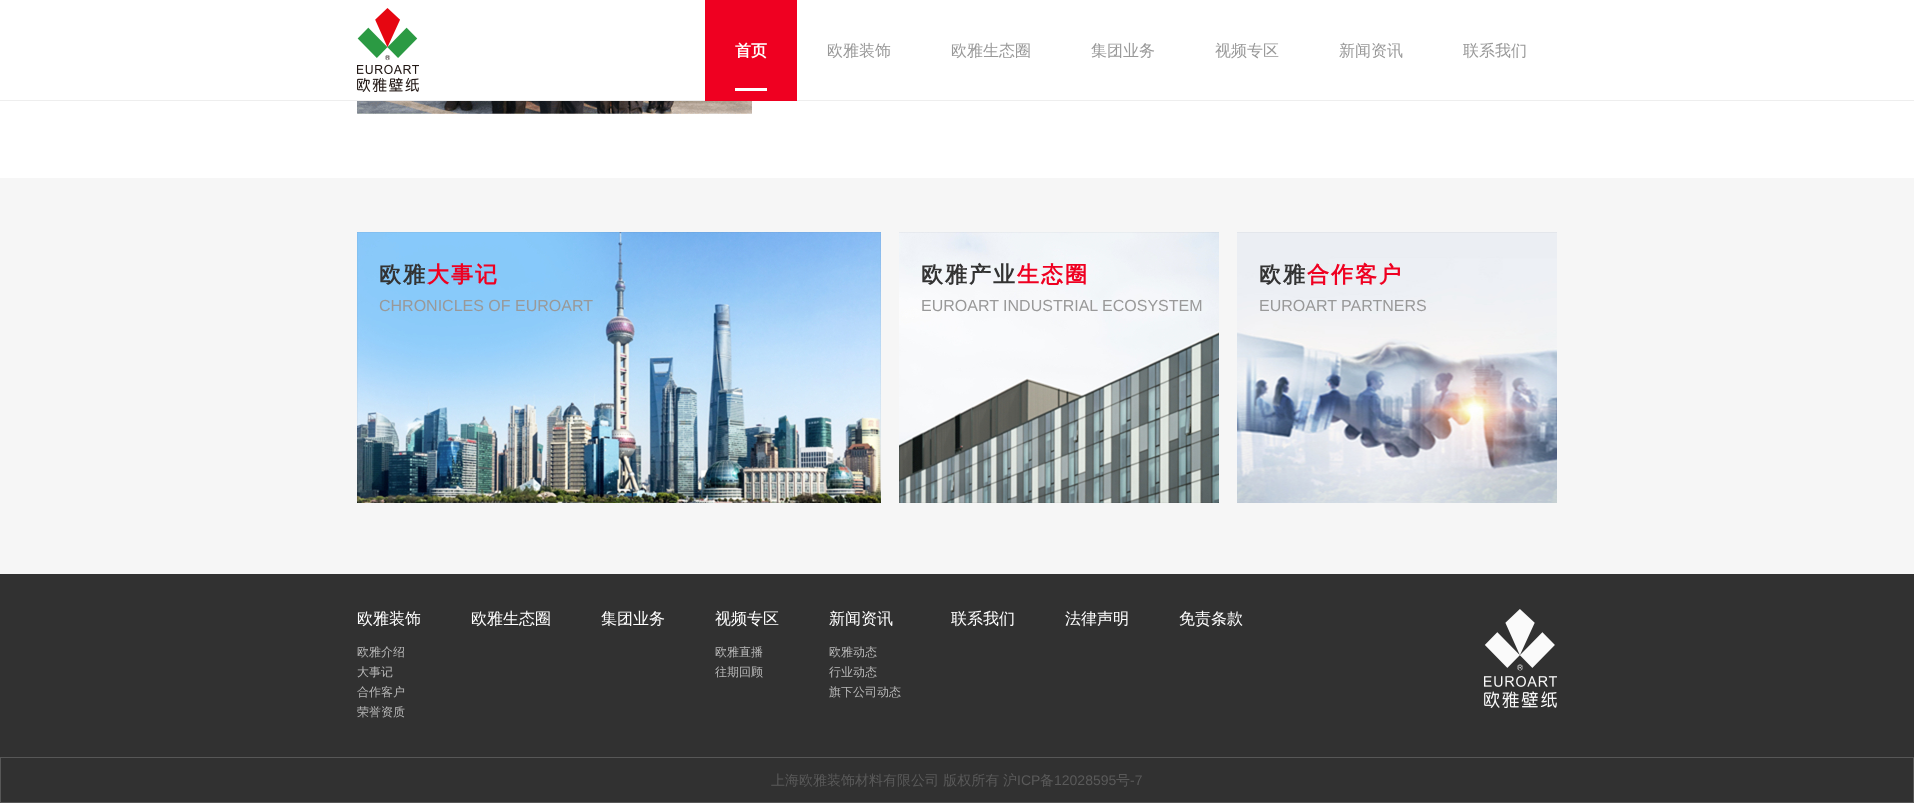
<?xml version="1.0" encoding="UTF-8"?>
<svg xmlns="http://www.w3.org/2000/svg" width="1914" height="803">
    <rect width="100%" height="100%" fill="#FFFFFF"/>
    <rect x="0" y="100" width="1914" height="1" fill="#EEEEEE"/>
    <image x="357" y="8" width="62" height="84" href="img_01.png"/>
    <rect x="705" y="0" width="92" height="101" fill="#EF0021"/>
    <text x="735" y="56" font-family="WenQuanYi Zen Hei" font-size="16" font-weight="700" fill="#FFFFFF">首页</text>
    <rect x="735" y="88" width="32" height="3" fill="#FFFFFF"/>
    <text x="827" y="56" font-family="WenQuanYi Zen Hei" font-size="16" font-weight="500" fill="#999999">欧雅装饰</text>
    <text x="951" y="56" font-family="WenQuanYi Zen Hei" font-size="16" font-weight="500" fill="#999999">欧雅生态圈</text>
    <text x="1091" y="56" font-family="WenQuanYi Zen Hei" font-size="16" font-weight="500" fill="#999999">集团业务</text>
    <text x="1215" y="56" font-family="WenQuanYi Zen Hei" font-size="16" font-weight="500" fill="#999999">视频专区</text>
    <text x="1339" y="56" font-family="WenQuanYi Zen Hei" font-size="16" font-weight="500" fill="#999999">新闻资讯</text>
    <text x="1463" y="56" font-family="WenQuanYi Zen Hei" font-size="16" font-weight="500" fill="#999999">联系我们</text>
    <image x="357" y="101" width="395" height="13" href="img_02.png"/>
    <rect x="0" y="178" width="1914" height="396" fill="#F6F6F6"/>
    <image x="357" y="232" width="524" height="271" href="img_03.png"/>
    <text x="379" y="282" font-family="WenQuanYi Zen Hei" font-size="22" font-weight="700" letter-spacing="2" fill="#333333">欧雅</text>
    <text x="427" y="282" font-family="WenQuanYi Zen Hei" font-size="22" font-weight="700" letter-spacing="2" fill="#EF0021">大事记</text>
    <text x="379" y="311" font-family="Liberation Sans" font-size="16" fill="#999999">CHRONICLES OF EUROART</text>
    <image x="899" y="232" width="320" height="271" href="img_04.png"/>
    <text x="921" y="282" font-family="WenQuanYi Zen Hei" font-size="22" font-weight="700" letter-spacing="2" fill="#333333">欧雅产业</text>
    <text x="1017" y="282" font-family="WenQuanYi Zen Hei" font-size="22" font-weight="700" letter-spacing="2" fill="#EF0021">生态圈</text>
    <text x="921" y="311" font-family="Liberation Sans" font-size="16" fill="#999999">EUROART INDUSTRIAL ECOSYSTEM</text>
    <image x="1237" y="232" width="320" height="271" href="img_05.png"/>
    <text x="1259" y="282" font-family="WenQuanYi Zen Hei" font-size="22" font-weight="700" letter-spacing="2" fill="#333333">欧雅</text>
    <text x="1307" y="282" font-family="WenQuanYi Zen Hei" font-size="22" font-weight="700" letter-spacing="2" fill="#EF0021">合作客户</text>
    <text x="1259" y="311" font-family="Liberation Sans" font-size="16" fill="#999999">EUROART PARTNERS</text>
    <rect x="0" y="574" width="1914" height="228" fill="#313131"/>
    <text x="357" y="624" font-family="WenQuanYi Zen Hei" font-size="16" font-weight="500" fill="#FFFFFF">欧雅装饰</text>
    <text font-family="WenQuanYi Zen Hei" font-size="12" font-weight="500" fill="#B7B7B7">
        <tspan x="357" y="656">欧雅介绍</tspan>
        <tspan x="357" y="676">大事记</tspan>
        <tspan x="357" y="696">合作客户</tspan>
        <tspan x="357" y="716">荣誉资质</tspan>
    </text>
    <text x="471" y="624" font-family="WenQuanYi Zen Hei" font-size="16" font-weight="500" fill="#FFFFFF">欧雅生态圈</text>
    <text x="601" y="624" font-family="WenQuanYi Zen Hei" font-size="16" font-weight="500" fill="#FFFFFF">集团业务</text>
    <text x="715" y="624" font-family="WenQuanYi Zen Hei" font-size="16" font-weight="500" fill="#FFFFFF">视频专区</text>
    <text font-family="WenQuanYi Zen Hei" font-size="12" font-weight="500" fill="#B7B7B7">
        <tspan x="715" y="656">欧雅直播</tspan>
        <tspan x="715" y="676">往期回顾</tspan>
    </text>
    <text x="829" y="624" font-family="WenQuanYi Zen Hei" font-size="16" font-weight="500" fill="#FFFFFF">新闻资讯</text>
    <text font-family="WenQuanYi Zen Hei" font-size="12" font-weight="500" fill="#B7B7B7">
        <tspan x="829" y="656">欧雅动态</tspan>
        <tspan x="829" y="676">行业动态</tspan>
        <tspan x="829" y="696">旗下公司动态</tspan>
    </text>
    <text x="951" y="624" font-family="WenQuanYi Zen Hei" font-size="16" font-weight="500" fill="#FFFFFF">联系我们</text>
    <text x="1065" y="624" font-family="WenQuanYi Zen Hei" font-size="16" font-weight="500" fill="#FFFFFF">法律声明</text>
    <text x="1179" y="624" font-family="WenQuanYi Zen Hei" font-size="16" font-weight="500" fill="#FFFFFF">免责条款</text>
    <image x="1484" y="609" width="73" height="99" href="img_06.png"/>
    <rect x="0.5" y="757.5" width="1913" height="45" fill="none" stroke="#575757"/>
    <text x="771" y="785" font-family="WenQuanYi Zen Hei" font-size="14" font-weight="500" fill="#5A5A5A">上海欧雅装饰材料有限公司 版权所有</text>
    <text x="1003" y="785" font-family="WenQuanYi Zen Hei" font-size="14" font-weight="500" fill="#5A5A5A">沪</text>
    <text x="1017" y="785" font-family="Liberation Sans" font-size="14" fill="#5A5A5A">ICP</text>
    <text x="1040" y="785" font-family="WenQuanYi Zen Hei" font-size="14" font-weight="500" fill="#5A5A5A">备</text>
    <text x="1054" y="785" font-family="Liberation Sans" font-size="14" fill="#5A5A5A">12028595</text>
    <text x="1116" y="785" font-family="WenQuanYi Zen Hei" font-size="14" font-weight="500" fill="#5A5A5A">号</text>
    <text x="1130" y="785" font-family="Liberation Sans" font-size="14" fill="#5A5A5A">-7</text>
</svg>
